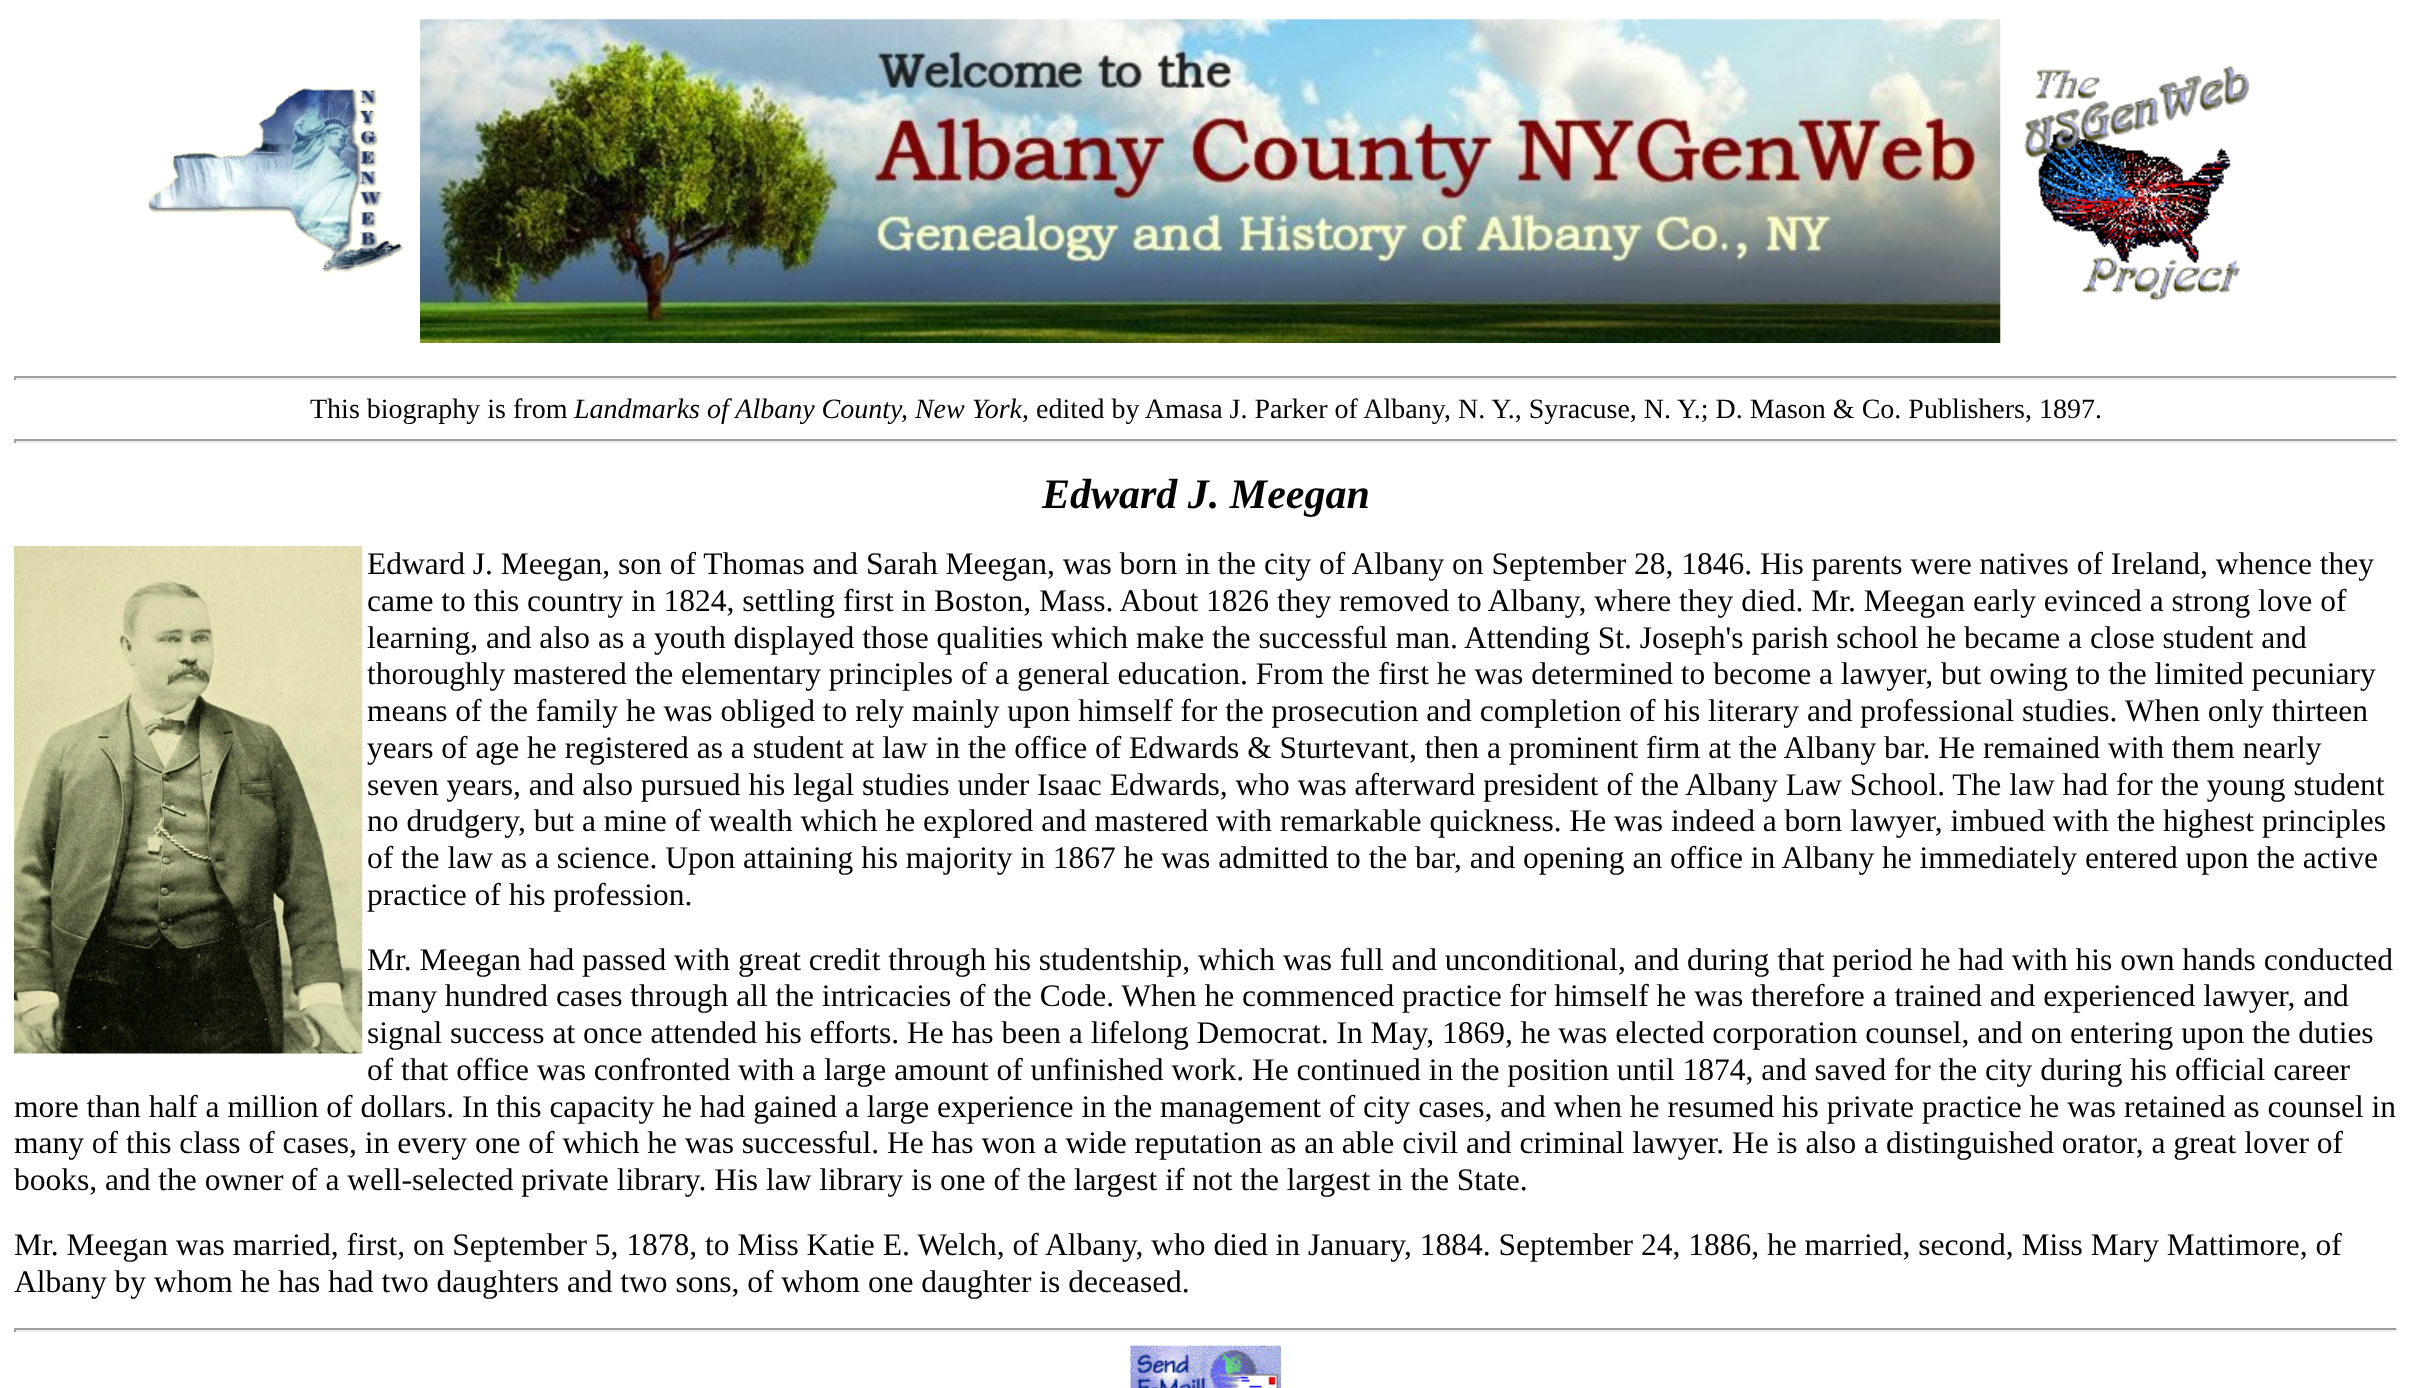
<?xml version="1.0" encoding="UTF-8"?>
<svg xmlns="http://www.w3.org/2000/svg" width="2410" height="1388">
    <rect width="100%" height="100%" fill="#FFFFFF"/>
    <image x="147" y="87" width="258" height="186" href="img_01.png"/>
    <image x="420" y="19" width="1581" height="324" href="img_02.png"/>
    <image x="2024" y="66" width="226" height="235" href="img_03.png"/>
    <rect x="14" y="376" width="2384" height="2" fill="#9F9F9F"/>
    <rect x="2396" y="376" width="2" height="4" fill="#EEEEEE"/>
    <rect x="14" y="378" width="2384" height="2" fill="#EEEEEE"/>
    <rect x="14" y="376" width="2" height="4" fill="#9F9F9F"/>
    <text x="310" y="418" font-family="Liberation Serif" font-size="28" fill="#000000">This biography is from</text>
    <text x="574" y="418" font-family="Liberation Serif" font-size="28" font-style="italic" fill="#000000">Landmarks of Albany County, New York</text>
    <text x="1022" y="418" font-family="Liberation Serif" font-size="28" fill="#000000">, edited by Amasa J. Parker of Albany, N. Y., Syracuse, N. Y.; D. Mason &amp; Co. Publishers, 1897.</text>
    <rect x="14" y="439" width="2384" height="2" fill="#9F9F9F"/>
    <rect x="2396" y="439" width="2" height="4" fill="#EEEEEE"/>
    <rect x="14" y="441" width="2384" height="2" fill="#EEEEEE"/>
    <rect x="14" y="439" width="2" height="4" fill="#9F9F9F"/>
    <text x="1042" y="508" font-family="Liberation Serif" font-size="42" font-weight="700" font-style="italic" fill="#000000">Edward J. Meegan</text>
    <image x="14" y="546" width="349" height="508" href="img_04.png"/>
    <text font-family="Liberation Serif" font-size="31.5" fill="#000000">
        <tspan x="367" y="574">Edward J. Meegan, son of Thomas and Sarah Meegan, was born in the city of Albany on September 28, 1846. His parents were natives of Ireland, whence they</tspan>
        <tspan x="367" y="611">came to this country in 1824, settling first in Boston, Mass. About 1826 they removed to Albany, where they died. Mr. Meegan early evinced a strong love of</tspan>
        <tspan x="367" y="648">learning, and also as a youth displayed those qualities which make the successful man. Attending St. Joseph's parish school he became a close student and</tspan>
        <tspan x="367" y="684">thoroughly mastered the elementary principles of a general education. From the first he was determined to become a lawyer, but owing to the limited pecuniary</tspan>
        <tspan x="367" y="721">means of the family he was obliged to rely mainly upon himself for the prosecution and completion of his literary and professional studies. When only thirteen</tspan>
        <tspan x="367" y="758">years of age he registered as a student at law in the office of Edwards &amp; Sturtevant, then a prominent firm at the Albany bar. He remained with them nearly</tspan>
        <tspan x="367" y="795">seven years, and also pursued his legal studies under Isaac Edwards, who was afterward president of the Albany Law School. The law had for the young student</tspan>
        <tspan x="367" y="831">no drudgery, but a mine of wealth which he explored and mastered with remarkable quickness. He was indeed a born lawyer, imbued with the highest principles</tspan>
        <tspan x="367" y="868">of the law as a science. Upon attaining his majority in 1867 he was admitted to the bar, and opening an office in Albany he immediately entered upon the active</tspan>
        <tspan x="367" y="905">practice of his profession.</tspan>
    </text>
    <text font-family="Liberation Serif" font-size="31.5" fill="#000000">
        <tspan x="367" y="970">Mr. Meegan had passed with great credit through his studentship, which was full and unconditional, and during that period he had with his own hands conducted</tspan>
        <tspan x="367" y="1006">many hundred cases through all the intricacies of the Code. When he commenced practice for himself he was therefore a trained and experienced lawyer, and</tspan>
        <tspan x="367" y="1043">signal success at once attended his efforts. He has been a lifelong Democrat. In May, 1869, he was elected corporation counsel, and on entering upon the duties</tspan>
        <tspan x="367" y="1080">of that office was confronted with a large amount of unfinished work. He continued in the position until 1874, and saved for the city during his official career</tspan>
    </text>
    <text font-family="Liberation Serif" font-size="31.5" fill="#000000">
        <tspan x="14" y="1117">more than half a million of dollars. In this capacity he had gained a large experience in the management of city cases, and when he resumed his private practice he was retained as counsel in</tspan>
        <tspan x="14" y="1153">many of this class of cases, in every one of which he was successful. He has won a wide reputation as an able civil and criminal lawyer. He is also a distinguished orator, a great lover of</tspan>
        <tspan x="14" y="1190">books, and the owner of a well-selected private library. His law library is one of the largest if not the largest in the State.</tspan>
    </text>
    <text font-family="Liberation Serif" font-size="31.5" fill="#000000">
        <tspan x="14" y="1255">Mr. Meegan was married, first, on September 5, 1878, to Miss Katie E. Welch, of Albany, who died in January, 1884. September 24, 1886, he married, second, Miss Mary Mattimore, of</tspan>
        <tspan x="14" y="1292">Albany by whom he has had two daughters and two sons, of whom one daughter is deceased.</tspan>
    </text>
    <rect x="14" y="1328" width="2384" height="2" fill="#9F9F9F"/>
    <rect x="2396" y="1328" width="2" height="4" fill="#EEEEEE"/>
    <rect x="14" y="1330" width="2384" height="2" fill="#EEEEEE"/>
    <rect x="14" y="1328" width="2" height="4" fill="#9F9F9F"/>
    <image x="1130" y="1345" width="151" height="43" href="img_05.png"/>
</svg>
